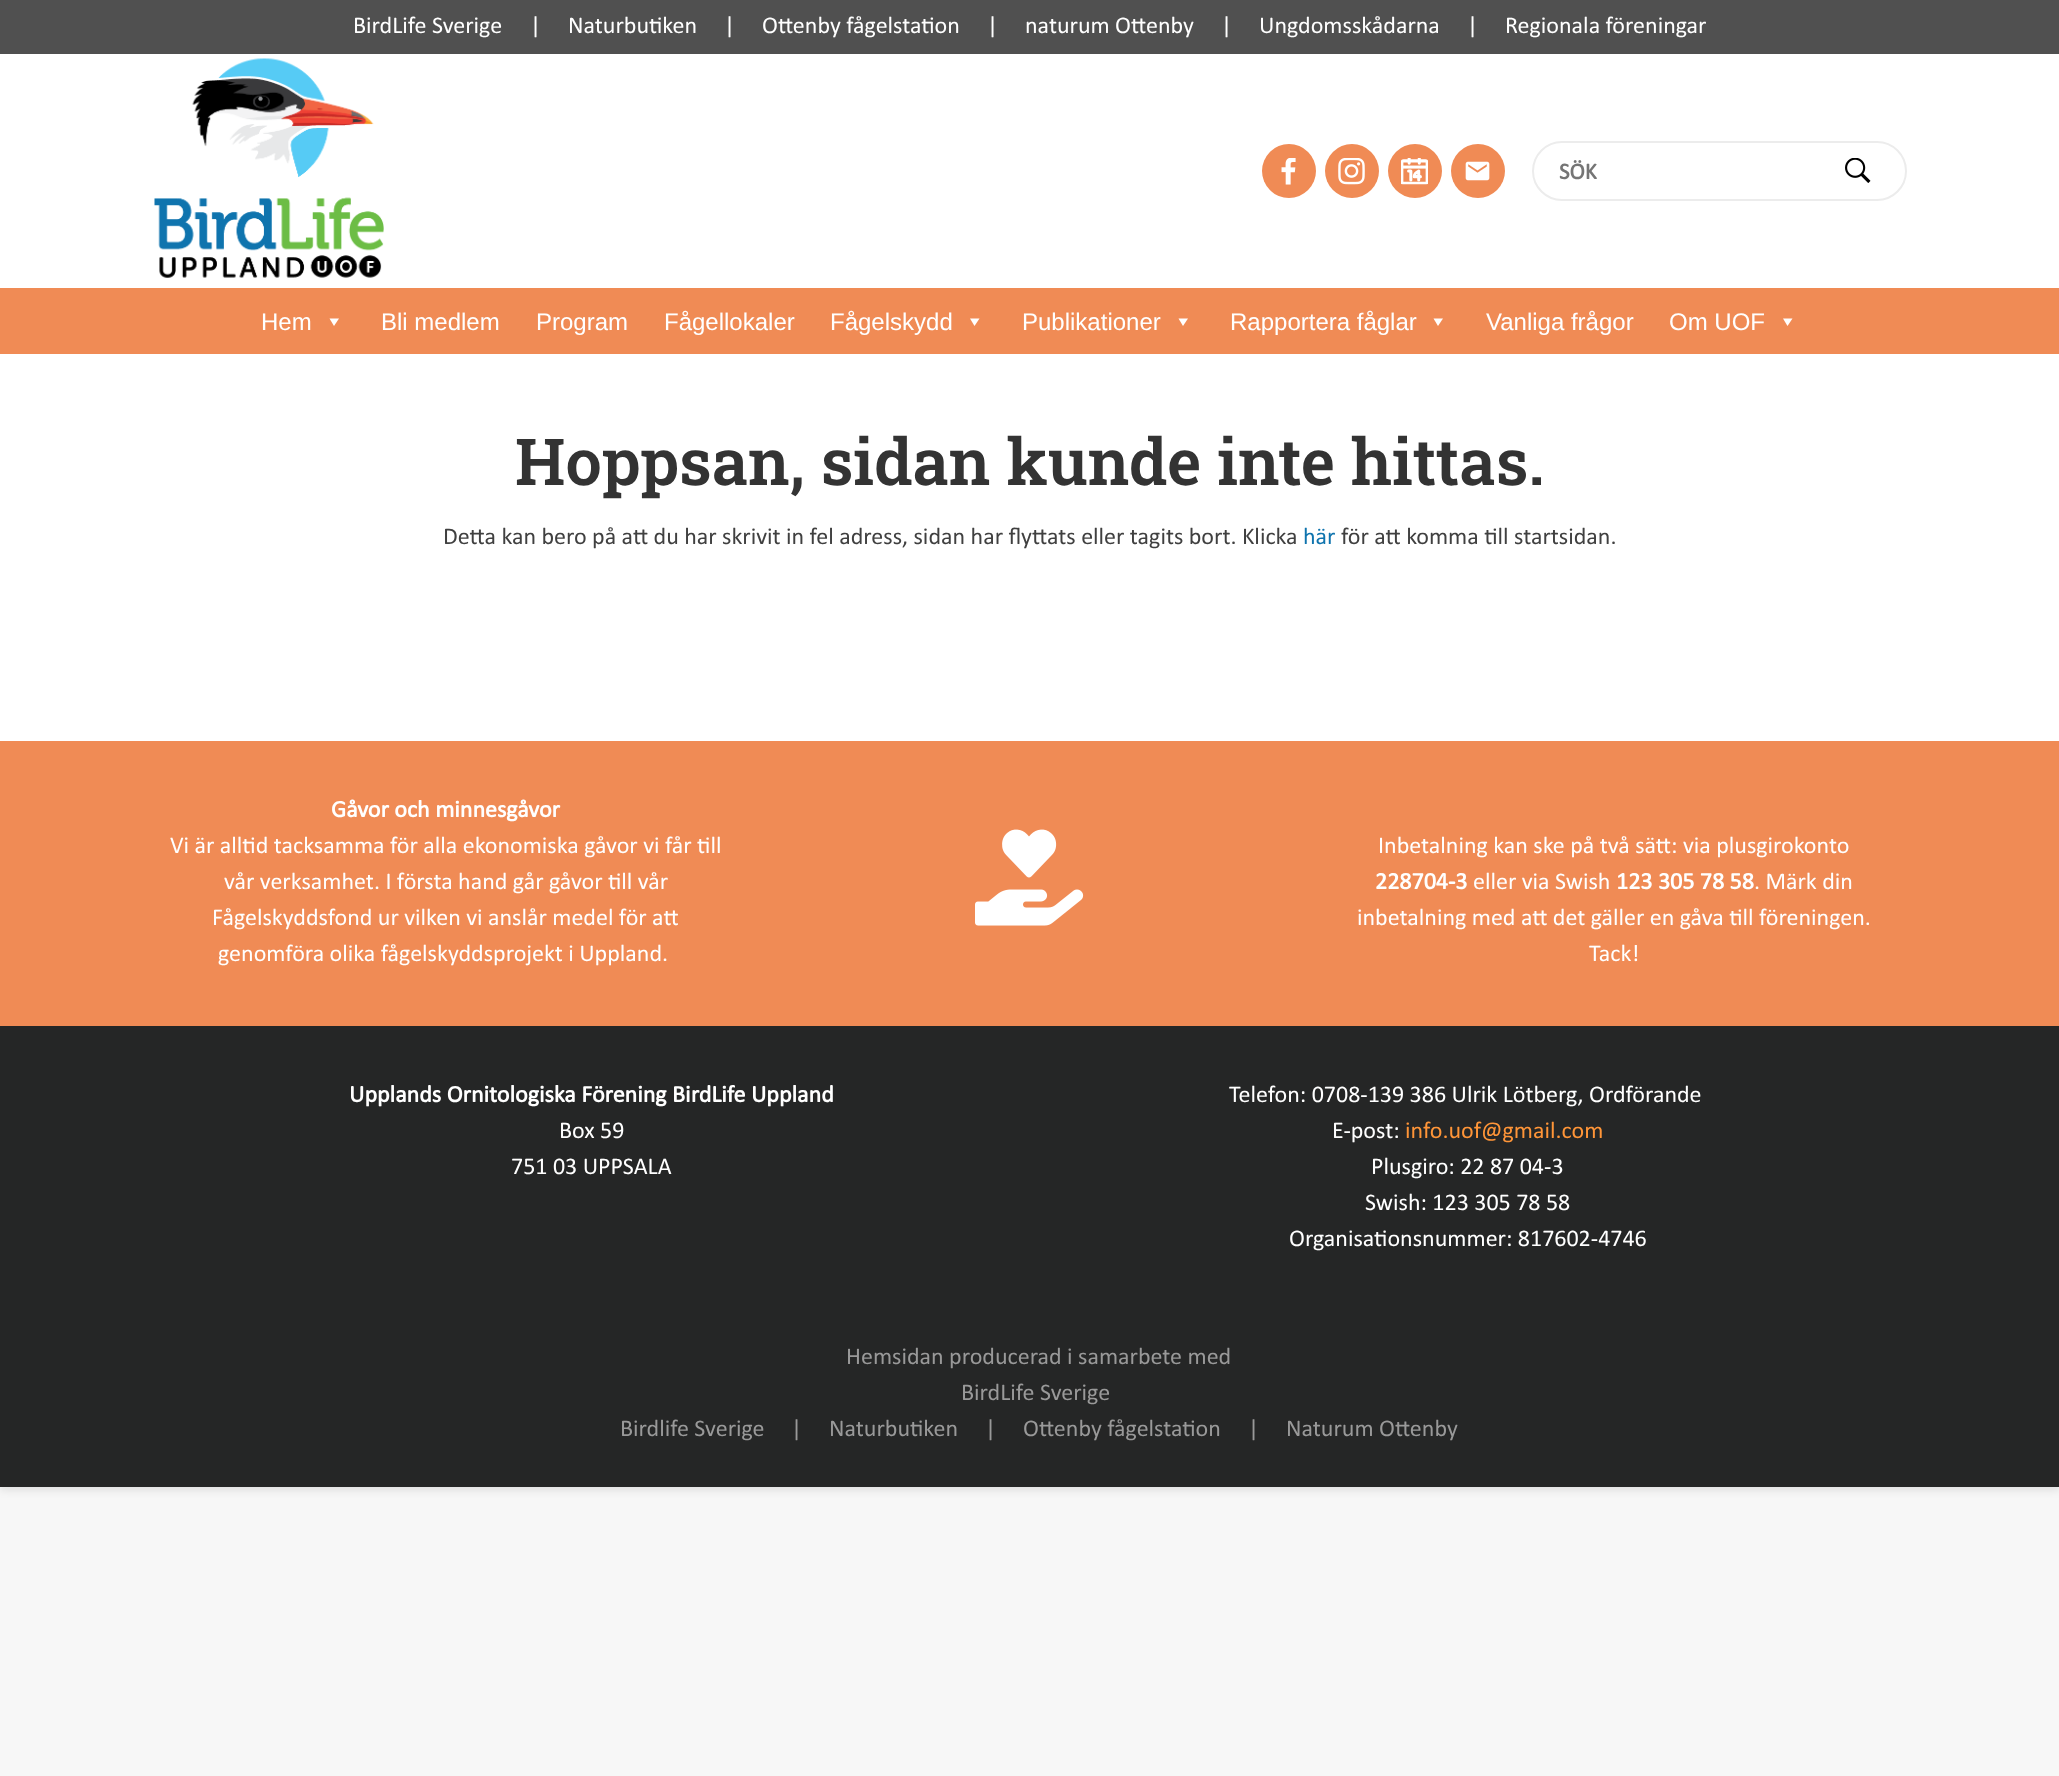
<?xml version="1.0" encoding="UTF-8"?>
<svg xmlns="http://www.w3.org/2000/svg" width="2059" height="1776">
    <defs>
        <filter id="blur1" x="-50%" y="-200%" width="200%" height="500%"><feGaussianBlur stdDeviation="4"/></filter>
    </defs>
    <rect width="100%" height="100%" fill="#F7F7F7"/>
    <rect x="0" y="3" width="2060" height="1487" fill="#000000" fill-opacity="0.1" filter="url(#blur1)"/>
    <rect x="0" y="54" width="2059" height="687" fill="#FFFFFF"/>
    <rect x="0" y="0" width="2059" height="54" fill="#505050"/>
    <text x="353" y="33" font-family="Calibri" font-size="24" fill="#FFFFFF">BirdLife Sverige</text>
    <text x="530" y="33" font-family="Calibri" font-size="24" fill="#FFFFFF">|</text>
    <text x="568" y="33" font-family="Calibri" font-size="24" fill="#FFFFFF">Naturbutiken</text>
    <text x="724" y="33" font-family="Calibri" font-size="24" fill="#FFFFFF">|</text>
    <text x="762" y="33" font-family="Calibri" font-size="24" fill="#FFFFFF">Ottenby fågelstation</text>
    <text x="987" y="33" font-family="Calibri" font-size="24" fill="#FFFFFF">|</text>
    <text x="1025" y="33" font-family="Calibri" font-size="24" fill="#FFFFFF">naturum Ottenby</text>
    <text x="1221" y="33" font-family="Calibri" font-size="24" fill="#FFFFFF">|</text>
    <text x="1259" y="33" font-family="Calibri" font-size="24" fill="#FFFFFF">Ungdomsskådarna</text>
    <text x="1467" y="33" font-family="Calibri" font-size="24" fill="#FFFFFF">|</text>
    <text x="1505" y="33" font-family="Calibri" font-size="24" fill="#FFFFFF">Regionala föreningar</text>
    <image x="154" y="58" width="230" height="220" href="img_01.png"/>
    <circle cx="1289" cy="171" r="27" fill="#F08B55"/>
    <image x="1281" y="158" width="15" height="27" href="img_02.png"/>
    <circle cx="1352" cy="171" r="27" fill="#F08B55"/>
    <image x="1338" y="158" width="27" height="27" href="img_03.png"/>
    <circle cx="1415" cy="171" r="27" fill="#F08B55"/>
    <image x="1401" y="158" width="27" height="27" href="img_04.png"/>
    <circle cx="1478" cy="171" r="27" fill="#F08B55"/>
    <image x="1465" y="161" width="25" height="20" href="img_05.png"/>
    <rect x="1533" y="142" width="373" height="58" rx="29" fill="none" stroke="#ECECEC" stroke-width="2"/>
    <text x="1559" y="179" font-family="Calibri" font-size="23" font-weight="700" fill="#757575">SÖK</text>
    <image x="1845" y="158" width="26" height="25" href="img_06.png"/>
    <rect x="0" y="288" width="2059" height="66" fill="#F08B55"/>
    <text x="261" y="330" font-family="Liberation Sans" font-size="24" fill="#FFFFFF">Hem</text>
    <path d="M 339 318.5 L 334 326 L 329.5 318.5 Z" fill="#FFFFFF"/>
    <text x="381" y="330" font-family="Liberation Sans" font-size="24" fill="#FFFFFF">Bli medlem</text>
    <text x="536" y="330" font-family="Liberation Sans" font-size="24" fill="#FFFFFF">Program</text>
    <text x="664" y="330" font-family="Liberation Sans" font-size="24" fill="#FFFFFF">Fågellokaler</text>
    <text x="830" y="330" font-family="Liberation Sans" font-size="24" fill="#FFFFFF">Fågelskydd</text>
    <path d="M 979.5 318.5 L 974.5 326 L 970 318.5 Z" fill="#FFFFFF"/>
    <text x="1022" y="330" font-family="Liberation Sans" font-size="24" fill="#FFFFFF">Publikationer</text>
    <path d="M 1188 318.5 L 1183 326 L 1178.5 318.5 Z" fill="#FFFFFF"/>
    <text x="1230" y="330" font-family="Liberation Sans" font-size="24" fill="#FFFFFF">Rapportera fåglar</text>
    <path d="M 1443 318.5 L 1438 326 L 1433.5 318.5 Z" fill="#FFFFFF"/>
    <text x="1486" y="330" font-family="Liberation Sans" font-size="24" fill="#FFFFFF">Vanliga frågor</text>
    <text x="1669" y="330" font-family="Liberation Sans" font-size="24" fill="#FFFFFF">Om UOF</text>
    <path d="M 1792.5 318.5 L 1787.5 326 L 1783 318.5 Z" fill="#FFFFFF"/>
    <text x="515" y="485" font-family="Roboto Slab" font-size="64.75" font-weight="600" fill="#333333">Hoppsan, sidan kunde inte hittas.</text>
    <text x="443" y="544" font-family="Calibri" font-size="24" fill="#404040">Detta kan bero på att du har skrivit in fel adress, sidan har flyttats eller tagits bort. Klicka</text>
    <text x="1303" y="544" font-family="Calibri" font-size="24" fill="#0F74AE">här</text>
    <text x="1341" y="544" font-family="Calibri" font-size="24" fill="#404040">för att komma till startsidan.</text>
    <rect x="0" y="741" width="2059" height="285" fill="#F08B55"/>
    <text x="331" y="817" font-family="Calibri" font-size="24" font-weight="700" fill="#FFFFFF">Gåvor och minnesgåvor</text>
    <text x="170" y="853" font-family="Calibri" font-size="24" fill="#FFFFFF">Vi är alltid tacksamma för alla ekonomiska gåvor vi får till</text>
    <text x="224" y="889" font-family="Calibri" font-size="24" fill="#FFFFFF">vår verksamhet. I första hand går gåvor till vår</text>
    <text x="212" y="925" font-family="Calibri" font-size="24" fill="#FFFFFF">Fågelskyddsfond ur vilken vi anslår medel för att</text>
    <text x="218" y="961" font-family="Calibri" font-size="24" fill="#FFFFFF">genomföra olika fågelskyddsprojekt i Uppland.</text>
    <image x="975" y="829" width="109" height="97" href="img_07.png"/>
    <text x="1378" y="853" font-family="Calibri" font-size="24" fill="#FFFFFF">Inbetalning kan ske på två sätt: via plusgirokonto</text>
    <text x="1375" y="889" font-family="Calibri" font-size="24" font-weight="700" fill="#FFFFFF">228704-3</text>
    <text x="1473" y="889" font-family="Calibri" font-size="24" fill="#FFFFFF">eller via Swish</text>
    <text x="1616" y="889" font-family="Calibri" font-size="24" font-weight="700" fill="#FFFFFF">123 305 78 58</text>
    <text x="1754" y="889" font-family="Calibri" font-size="24" fill="#FFFFFF">. Märk din</text>
    <text x="1357" y="925" font-family="Calibri" font-size="24" fill="#FFFFFF">inbetalning med att det gäller en gåva till föreningen.</text>
    <text x="1589" y="961" font-family="Calibri" font-size="24" fill="#FFFFFF">Tack!</text>
    <rect x="0" y="1026" width="2059" height="461" fill="#252626"/>
    <text x="349" y="1102" font-family="Calibri" font-size="24" font-weight="700" fill="#FFFFFF">Upplands Ornitologiska Förening BirdLife Uppland</text>
    <text x="559" y="1138" font-family="Calibri" font-size="24" fill="#FFFFFF">Box 59</text>
    <text x="511" y="1174" font-family="Calibri" font-size="24" fill="#FFFFFF">751 03 UPPSALA</text>
    <text x="1229" y="1102" font-family="Calibri" font-size="24" fill="#FFFFFF">Telefon: 0708-139 386 Ulrik Lötberg, Ordförande</text>
    <text x="1332" y="1138" font-family="Calibri" font-size="24" fill="#FFFFFF">E-post:</text>
    <text x="1405" y="1138" font-family="Calibri" font-size="24" fill="#FF9538">info.uof@gmail.com</text>
    <text x="1371" y="1174" font-family="Calibri" font-size="24" fill="#FFFFFF">Plusgiro: 22 87 04-3</text>
    <text x="1365" y="1210" font-family="Calibri" font-size="24" fill="#FFFFFF">Swish: 123 305 78 58</text>
    <text x="1289" y="1246" font-family="Calibri" font-size="24" fill="#FFFFFF">Organisationsnummer: 817602-4746</text>
    <text x="846" y="1364" font-family="Calibri" font-size="24" fill="#999999">Hemsidan producerad i samarbete med</text>
    <text x="961" y="1400" font-family="Calibri" font-size="24" fill="#999999">BirdLife Sverige</text>
    <text x="620" y="1436" font-family="Calibri" font-size="24" fill="#999999">Birdlife Sverige</text>
    <text x="791" y="1436" font-family="Calibri" font-size="24" fill="#999999">|</text>
    <text x="829" y="1436" font-family="Calibri" font-size="24" fill="#999999">Naturbutiken</text>
    <text x="985" y="1436" font-family="Calibri" font-size="24" fill="#999999">|</text>
    <text x="1023" y="1436" font-family="Calibri" font-size="24" fill="#999999">Ottenby fågelstation</text>
    <text x="1248" y="1436" font-family="Calibri" font-size="24" fill="#999999">|</text>
    <text x="1286" y="1436" font-family="Calibri" font-size="24" fill="#999999">Naturum Ottenby</text>
</svg>
